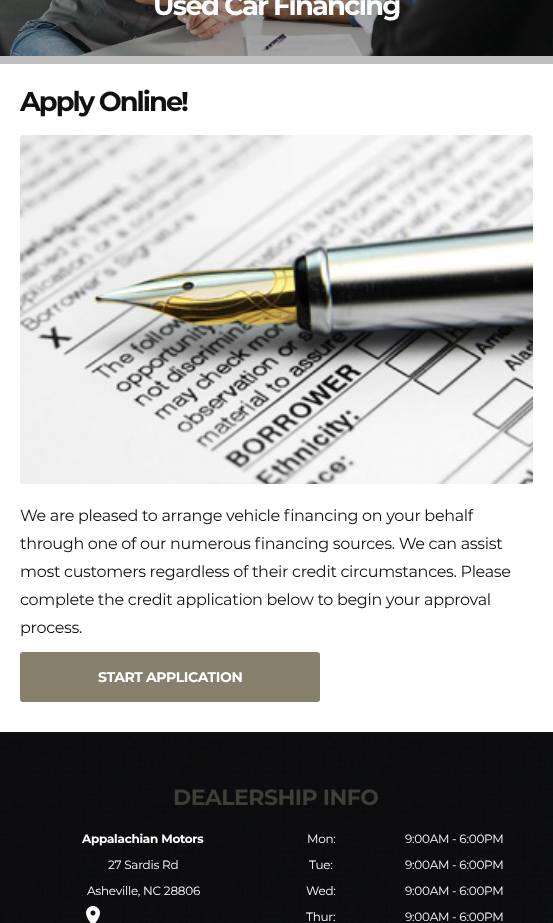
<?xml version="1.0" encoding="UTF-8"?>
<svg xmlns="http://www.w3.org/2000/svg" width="553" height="923">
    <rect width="100%" height="100%" fill="#FFFFFF"/>
    <image x="0" y="0" width="553" height="56" href="img_01.png"/>
    <rect x="0" y="56" width="553" height="8" fill="#C0C0C0"/>
    <text x="153" y="15" font-family="Montserrat" font-size="27.25" font-weight="700" letter-spacing="-1.75" fill="#FFFFFF">Used Car Financing</text>
    <text x="20" y="111" font-family="Montserrat" font-size="27.25" font-weight="700" letter-spacing="-2" fill="#111111">Apply Online!</text>
    <image x="20" y="135" width="513" height="349" href="img_02.png"/>
    <text font-family="Montserrat" font-size="16" letter-spacing="-0.32" fill="#111111">
        <tspan x="20" y="521">We are pleased to arrange vehicle financing on your behalf</tspan>
        <tspan x="20" y="549">through one of our numerous financing sources. We can assist</tspan>
        <tspan x="20" y="577">most customers regardless of their credit circumstances. Please</tspan>
        <tspan x="20" y="605">complete the credit application below to begin your approval</tspan>
        <tspan x="20" y="633">process.</tspan>
    </text>
    <rect x="20" y="652" width="300" height="50" rx="3" fill="#87806C"/>
    <text x="98" y="682" font-family="Montserrat" font-size="14" font-weight="700" letter-spacing="-0.4" fill="#FFFFFF">START APPLICATION</text>
    <image x="0" y="734" width="553" height="189" href="img_03.png"/>
    <rect x="0" y="732" width="553" height="2" fill="#111111"/>
    <text x="173" y="805" font-family="Montserrat" font-size="22" font-weight="700" letter-spacing="-0.5" fill="#3F3D38">DEALERSHIP INFO</text>
    <text x="82" y="843" font-family="Montserrat" font-size="12" font-weight="700" letter-spacing="-0.25" fill="#FFFFFF">Appalachian Motors</text>
    <text x="108" y="869" font-family="Montserrat" font-size="12" letter-spacing="-0.25" fill="#FFFFFF">27 Sardis Rd</text>
    <text x="87" y="895" font-family="Montserrat" font-size="12" letter-spacing="-0.25" fill="#FFFFFF">Asheville, NC 28806</text>
    <image x="86" y="906" width="14" height="17" href="img_04.png"/>
    <text x="307" y="843" font-family="Montserrat" font-size="12" letter-spacing="-0.25" fill="#FFFFFF">Mon:</text>
    <text x="405" y="843" font-family="Montserrat" font-size="12" letter-spacing="-0.25" fill="#FFFFFF">9:00AM - 6:00PM</text>
    <text x="309" y="869" font-family="Montserrat" font-size="12" letter-spacing="-0.25" fill="#FFFFFF">Tue:</text>
    <text x="405" y="869" font-family="Montserrat" font-size="12" letter-spacing="-0.25" fill="#FFFFFF">9:00AM - 6:00PM</text>
    <text x="306" y="895" font-family="Montserrat" font-size="12" letter-spacing="-0.25" fill="#FFFFFF">Wed:</text>
    <text x="405" y="895" font-family="Montserrat" font-size="12" letter-spacing="-0.25" fill="#FFFFFF">9:00AM - 6:00PM</text>
    <text x="306" y="921" font-family="Montserrat" font-size="12" letter-spacing="-0.25" fill="#FFFFFF">Thur:</text>
    <text x="405" y="921" font-family="Montserrat" font-size="12" letter-spacing="-0.25" fill="#FFFFFF">9:00AM - 6:00PM</text>
</svg>
